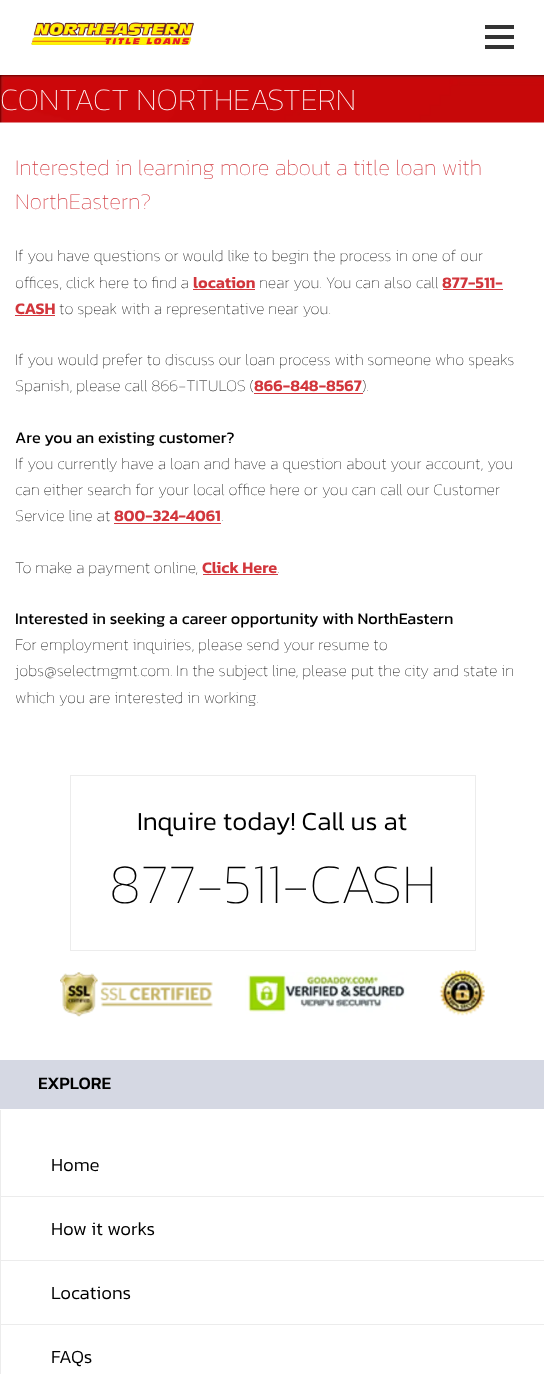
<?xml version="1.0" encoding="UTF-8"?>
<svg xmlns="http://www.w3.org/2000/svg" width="544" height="1374">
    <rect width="100%" height="100%" fill="#FFFFFF"/>
    <image x="31" y="22" width="163" height="23" href="img_01.png"/>
    <rect x="485" y="25" width="29" height="4" fill="#333333"/>
    <rect x="485" y="35" width="29" height="4" fill="#333333"/>
    <rect x="485" y="45" width="29" height="4" fill="#333333"/>
    <image x="0" y="75" width="544" height="48" href="img_02.png"/>
    <text x="0" y="110" font-family="Kanit" font-size="31.25" font-weight="200" fill="#FFFFFF">CONTACT NORTHEASTERN</text>
    <text font-family="Kanit" font-size="22.5" font-weight="200" fill="#D2363C">
        <tspan x="15" y="175">Interested in learning more about a title loan with</tspan>
        <tspan x="15" y="209">NorthEastern?</tspan>
    </text>
    <text font-family="Kanit" font-size="16.25" font-weight="200" fill="#000000">
        <tspan x="15" y="261">If you have questions or would like to begin the process in one of our</tspan>
        <tspan x="15" y="288">offices, click here to find a</tspan>
    </text>
    <text x="193" y="288" font-family="Kanit" font-size="16.25" font-weight="600" fill="#D2363C">location</text>
    <rect x="193" y="289" width="62" height="1" fill="#D2363C"/>
    <text x="259" y="288" font-family="Kanit" font-size="16.25" font-weight="200" fill="#000000">near you. You can also call</text>
    <text x="442" y="288" font-family="Kanit" font-size="16.25" font-weight="600" fill="#D2363C">877-511-</text>
    <rect x="443" y="289" width="60" height="1" fill="#D2363C"/>
    <text x="15" y="314" font-family="Kanit" font-size="16.25" font-weight="600" fill="#D2363C">CASH</text>
    <rect x="15" y="315" width="40" height="1" fill="#D2363C"/>
    <text x="59" y="314" font-family="Kanit" font-size="16.25" font-weight="200" fill="#000000">to speak with a representative near you.</text>
    <text font-family="Kanit" font-size="16.25" font-weight="200" fill="#000000">
        <tspan x="15" y="365">If you would prefer to discuss our loan process with someone who speaks</tspan>
        <tspan x="15" y="391">Spanish, please call 866-TITULOS (</tspan>
    </text>
    <text x="254" y="391" font-family="Kanit" font-size="16.25" font-weight="600" fill="#D2363C">866-848-8567</text>
    <rect x="254" y="393" width="109" height="1" fill="#D2363C"/>
    <text x="362" y="391" font-family="Kanit" font-size="16.25" font-weight="200" fill="#000000">).</text>
    <text x="15" y="443" font-family="Kanit" font-size="16.25" fill="#000000">Are you an existing customer?</text>
    <text font-family="Kanit" font-size="16.25" font-weight="200" fill="#000000">
        <tspan x="15" y="469">If you currently have a loan and have a question about your account, you</tspan>
        <tspan x="15" y="495">can either search for your local office here or you can call our Customer</tspan>
        <tspan x="15" y="521">Service line at</tspan>
    </text>
    <text x="114" y="521" font-family="Kanit" font-size="16.25" font-weight="600" fill="#D2363C">800-324-4061</text>
    <rect x="114" y="523" width="107" height="1" fill="#D2363C"/>
    <text x="221" y="521" font-family="Kanit" font-size="16.25" font-weight="200" fill="#000000">.</text>
    <text x="15" y="573" font-family="Kanit" font-size="16.25" font-weight="200" fill="#000000">To make a payment online,</text>
    <text x="202" y="573" font-family="Kanit" font-size="16.25" font-weight="600" fill="#D2363C">Click Here</text>
    <rect x="203" y="574" width="75" height="1" fill="#D2363C"/>
    <text x="277" y="573" font-family="Kanit" font-size="16.25" font-weight="200" fill="#000000">.</text>
    <text x="15" y="624" font-family="Kanit" font-size="16.25" fill="#000000">Interested in seeking a career opportunity with NorthEastern</text>
    <text font-family="Kanit" font-size="16.25" font-weight="200" fill="#000000">
        <tspan x="15" y="650">For employment inquiries, please send your resume to</tspan>
        <tspan x="15" y="676">jobs@selectmgmt.com. In the subject line, please put the city and state in</tspan>
        <tspan x="15" y="703">which you are interested in working.</tspan>
    </text>
    <rect x="70.5" y="775.5" width="405" height="175" fill="none" stroke="#ECECEC"/>
    <text x="137" y="830" font-family="Kanit" font-size="26.25" font-weight="300" fill="#000000">Inquire today! Call us at</text>
    <text x="109" y="903" font-family="Kanit" font-size="56.25" font-weight="200" fill="#000000">877-511-CASH</text>
    <image x="60" y="970" width="425" height="47" href="img_03.png"/>
    <rect x="0" y="1060" width="544" height="49" fill="#D5D8E3"/>
    <text x="38" y="1089" font-family="Kanit" font-size="17.5" font-weight="500" fill="#000000">EXPLORE</text>
    <rect x="0" y="1110" width="1" height="264" fill="#ECECEC"/>
    <rect x="1" y="1196" width="543" height="1" fill="#ECECEC"/>
    <text x="51" y="1171" font-family="Kanit" font-size="18.75" font-weight="300" fill="#000000">Home</text>
    <rect x="1" y="1260" width="543" height="1" fill="#ECECEC"/>
    <text x="51" y="1235" font-family="Kanit" font-size="18.75" font-weight="300" fill="#000000">How it works</text>
    <rect x="1" y="1324" width="543" height="1" fill="#ECECEC"/>
    <text x="51" y="1299" font-family="Kanit" font-size="18.75" font-weight="300" fill="#000000">Locations</text>
    <text x="51" y="1363" font-family="Kanit" font-size="18.75" font-weight="300" fill="#000000">FAQs</text>
</svg>
